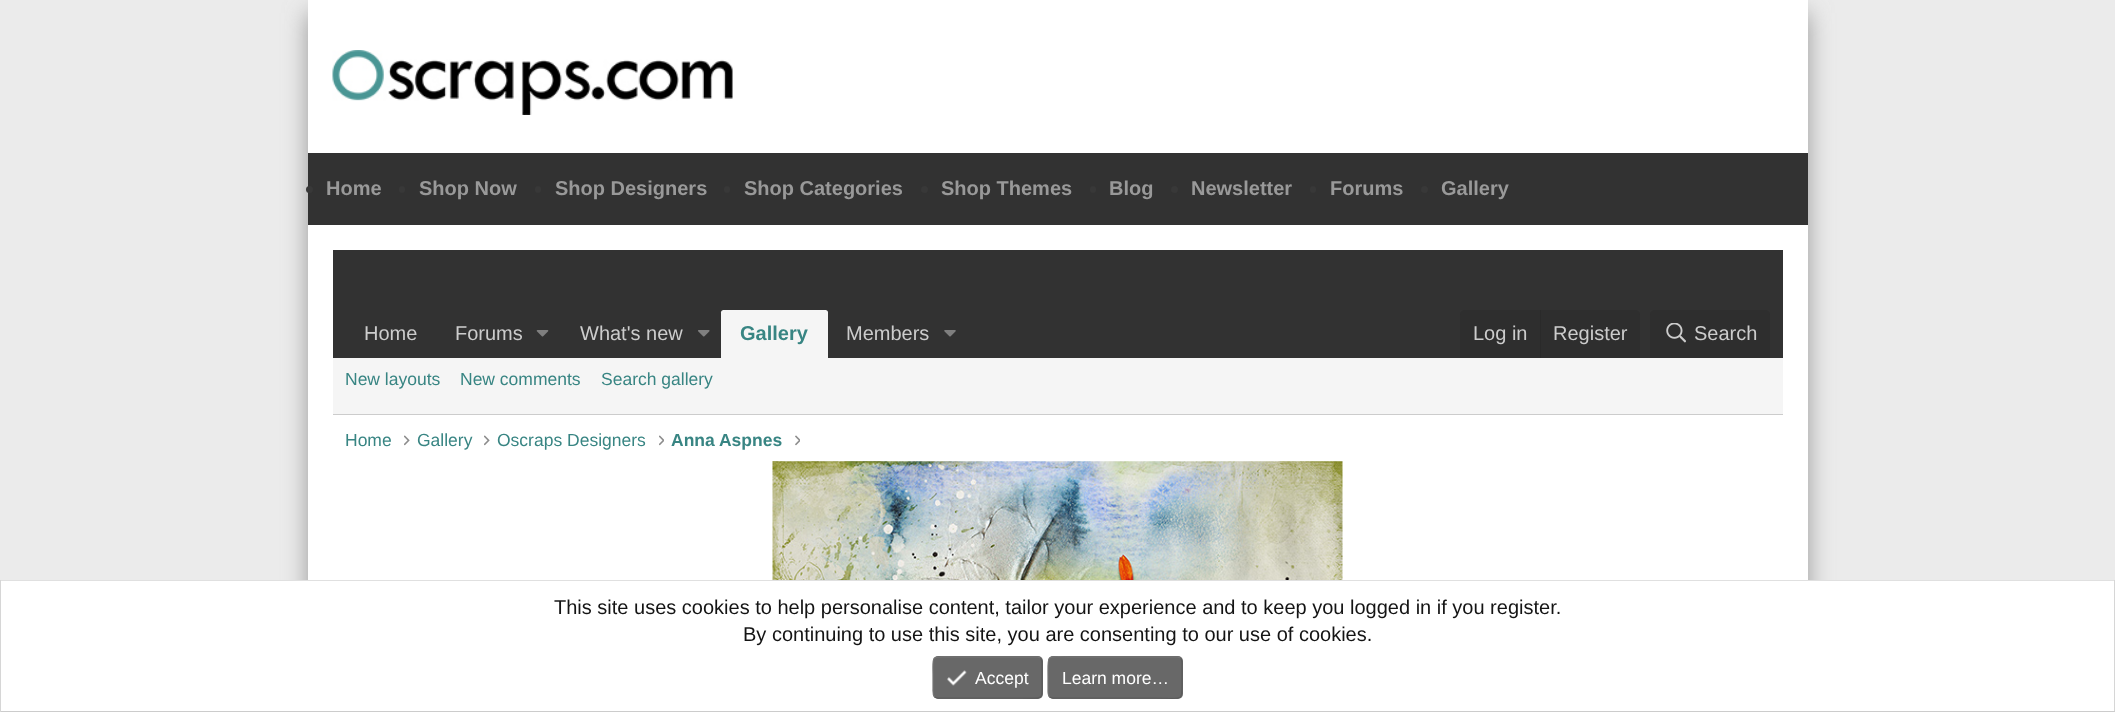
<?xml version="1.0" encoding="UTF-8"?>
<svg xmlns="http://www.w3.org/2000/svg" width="2115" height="712">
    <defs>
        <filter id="blur1" x="-50%" y="-200%" width="200%" height="500%"><feGaussianBlur stdDeviation="12.5"/></filter>
    </defs>
    <rect width="100%" height="100%" fill="#EBEBEB"/>
    <rect x="308" y="13" width="1500" height="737" fill="#989898" filter="url(#blur1)"/>
    <rect x="308" y="0" width="1500" height="580" fill="#FFFFFF"/>
    <image x="332" y="50" width="401" height="65" href="img_01.png"/>
    <rect x="308" y="153" width="1500" height="72" fill="#323232"/>
    <circle cx="309.5" cy="189.5" r="3.5" fill="#383838"/>
    <text x="326" y="195" font-family="Liberation Sans" font-size="20" font-weight="700" fill="#999999">Home</text>
    <rect x="399" y="186" width="6" height="7" rx="3" fill="#383838"/>
    <text x="419" y="195" font-family="Liberation Sans" font-size="20" font-weight="700" fill="#999999">Shop Now</text>
    <rect x="535" y="186" width="6" height="7" rx="3" fill="#383838"/>
    <text x="555" y="195" font-family="Liberation Sans" font-size="20" font-weight="700" fill="#999999">Shop Designers</text>
    <rect x="724" y="186" width="6" height="7" rx="3" fill="#383838"/>
    <text x="744" y="195" font-family="Liberation Sans" font-size="20" font-weight="700" fill="#999999">Shop Categories</text>
    <circle cx="924.5" cy="189.5" r="3.5" fill="#383838"/>
    <text x="941" y="195" font-family="Liberation Sans" font-size="20" font-weight="700" fill="#999999">Shop Themes</text>
    <rect x="1090" y="186" width="6" height="7" rx="3" fill="#383838"/>
    <text x="1109" y="195" font-family="Liberation Sans" font-size="20" font-weight="700" fill="#999999">Blog</text>
    <circle cx="1174.5" cy="189.5" r="3.5" fill="#383838"/>
    <text x="1191" y="195" font-family="Liberation Sans" font-size="20" font-weight="700" fill="#999999">Newsletter</text>
    <rect x="1310" y="186" width="6" height="7" rx="3" fill="#383838"/>
    <text x="1330" y="195" font-family="Liberation Sans" font-size="20" font-weight="700" fill="#999999">Forums</text>
    <circle cx="1424.5" cy="189.5" r="3.5" fill="#383838"/>
    <text x="1441" y="195" font-family="Liberation Sans" font-size="20" font-weight="700" fill="#999999">Gallery</text>
    <rect x="333" y="250" width="1450" height="108" fill="#323232"/>
    <text x="364" y="340" font-family="Liberation Sans" font-size="20" fill="#CCCCCC">Home</text>
    <text x="455" y="340" font-family="Liberation Sans" font-size="20" fill="#CCCCCC">Forums</text>
    <image x="536" y="330" width="13" height="7" href="img_02.png"/>
    <text x="580" y="340" font-family="Liberation Sans" font-size="20" fill="#CCCCCC">What's new</text>
    <image x="698" y="330" width="12" height="7" href="img_03.png"/>
    <path d="M 723.5 310 H 825.5 C 827 310 828 311 828 312.5 V 358 H 721 V 312.5 C 721 311 722 310 723.5 310 Z" fill="#F5F5F5"/>
    <text x="740" y="340" font-family="Liberation Sans" font-size="20" font-weight="700" fill="#388583">Gallery</text>
    <text x="846" y="340" font-family="Liberation Sans" font-size="20" fill="#CCCCCC">Members</text>
    <image x="944" y="330" width="12" height="7" href="img_04.png"/>
    <path d="M 1465 310 H 1635 C 1638 310 1640 312 1640 315 V 358 H 1460 V 315 C 1460 312 1462 310 1465 310 Z" fill="#2E2E2E"/>
    <text x="1473" y="340" font-family="Liberation Sans" font-size="20" fill="#CCCCCC">Log in</text>
    <rect x="1540" y="310" width="1" height="48" fill="#2A2A2A"/>
    <text x="1553" y="340" font-family="Liberation Sans" font-size="20" fill="#CCCCCC">Register</text>
    <path d="M 1655 310 H 1765 C 1768 310 1770 312 1770 315 V 358 H 1650 V 315 C 1650 312 1652 310 1655 310 Z" fill="#2E2E2E"/>
    <image x="1666" y="323" width="20" height="20" href="img_05.png"/>
    <text x="1694" y="340" font-family="Liberation Sans" font-size="20" fill="#CCCCCC">Search</text>
    <rect x="333" y="358" width="1450" height="56" fill="#F5F5F5"/>
    <rect x="333" y="414" width="1450" height="1" fill="#CCCCCC"/>
    <text x="345" y="385" font-family="Liberation Sans" font-size="17.5" fill="#388583">New layouts</text>
    <text x="460" y="385" font-family="Liberation Sans" font-size="17.5" fill="#388583">New comments</text>
    <text x="601" y="385" font-family="Liberation Sans" font-size="17.5" fill="#388583">Search gallery</text>
    <text x="345" y="446" font-family="Liberation Sans" font-size="17.5" fill="#388583">Home</text>
    <image x="404" y="435" width="6" height="11" href="img_06.png"/>
    <text x="417" y="446" font-family="Liberation Sans" font-size="17.5" fill="#388583">Gallery</text>
    <image x="484" y="435" width="6" height="11" href="img_06.png"/>
    <text x="497" y="446" font-family="Liberation Sans" font-size="17.5" fill="#388583">Oscraps Designers</text>
    <image x="659" y="435" width="5" height="11" href="img_07.png"/>
    <text x="671" y="446" font-family="Liberation Sans" font-size="17.5" font-weight="700" fill="#388583">Anna Aspnes</text>
    <image x="795" y="435" width="5" height="11" href="img_08.png"/>
    <image x="772" y="461" width="571" height="119" href="img_09.png"/>
    <rect x="1" y="581" width="2113" height="130" fill="#FFFFFF"/>
    <rect x="0" y="580" width="2115" height="1" fill="#E0E0E0"/>
    <rect x="2114" y="580" width="1" height="132" fill="#D6D6D6"/>
    <rect x="0" y="711" width="2115" height="1" fill="#CCCCCC"/>
    <rect x="0" y="580" width="1" height="132" fill="#D6D6D6"/>
    <text x="554" y="614" font-family="Liberation Sans" font-size="20" fill="#141414">This site uses cookies to help personalise content, tailor your experience and to keep you logged in if you register.</text>
    <text x="743" y="641" font-family="Liberation Sans" font-size="20" fill="#141414">By continuing to use this site, you are consenting to our use of cookies.</text>
    <rect x="933" y="656" width="110" height="43" rx="5" fill="#686868"/>
    <path d="M 1040.5 658 C 1042.5 660.5 1042 664.5 1042 666.5 V 677.5 C 1042 701.5 1045.5 698 1021 698 H 937.5 L 934.5 697" fill="none" stroke="#5B5B5B" stroke-width="1.2"/>
    <path d="M 934.5 697 C 932.5 694.5 933 690.5 933 688.5 V 677.5 C 933 653.5 929.5 657 954 657 H 1037.5 L 1040.5 658" fill="none" stroke="#757575" stroke-width="1.2"/>
    <image x="947" y="670" width="20" height="16" href="img_10.png"/>
    <text x="975" y="684" font-family="Liberation Sans" font-size="17.5" fill="#FFFFFF">Accept</text>
    <rect x="1048" y="656" width="135" height="43" rx="5" fill="#686868"/>
    <path d="M 1180.5 658 C 1182.5 660.5 1182 664.5 1182 666.5 V 677.5 C 1182 703 1185 698 1156.5 698 H 1052.5 L 1049.5 697" fill="none" stroke="#5B5B5B" stroke-width="1.2"/>
    <path d="M 1049.5 697 C 1047.5 694.5 1048 690.5 1048 688.5 V 677.5 C 1048 652 1045 657 1073.5 657 H 1177.5 L 1180.5 658" fill="none" stroke="#757575" stroke-width="1.2"/>
    <text x="1062" y="684" font-family="Liberation Sans" font-size="17.5" fill="#FFFFFF">Learn more…</text>
</svg>
